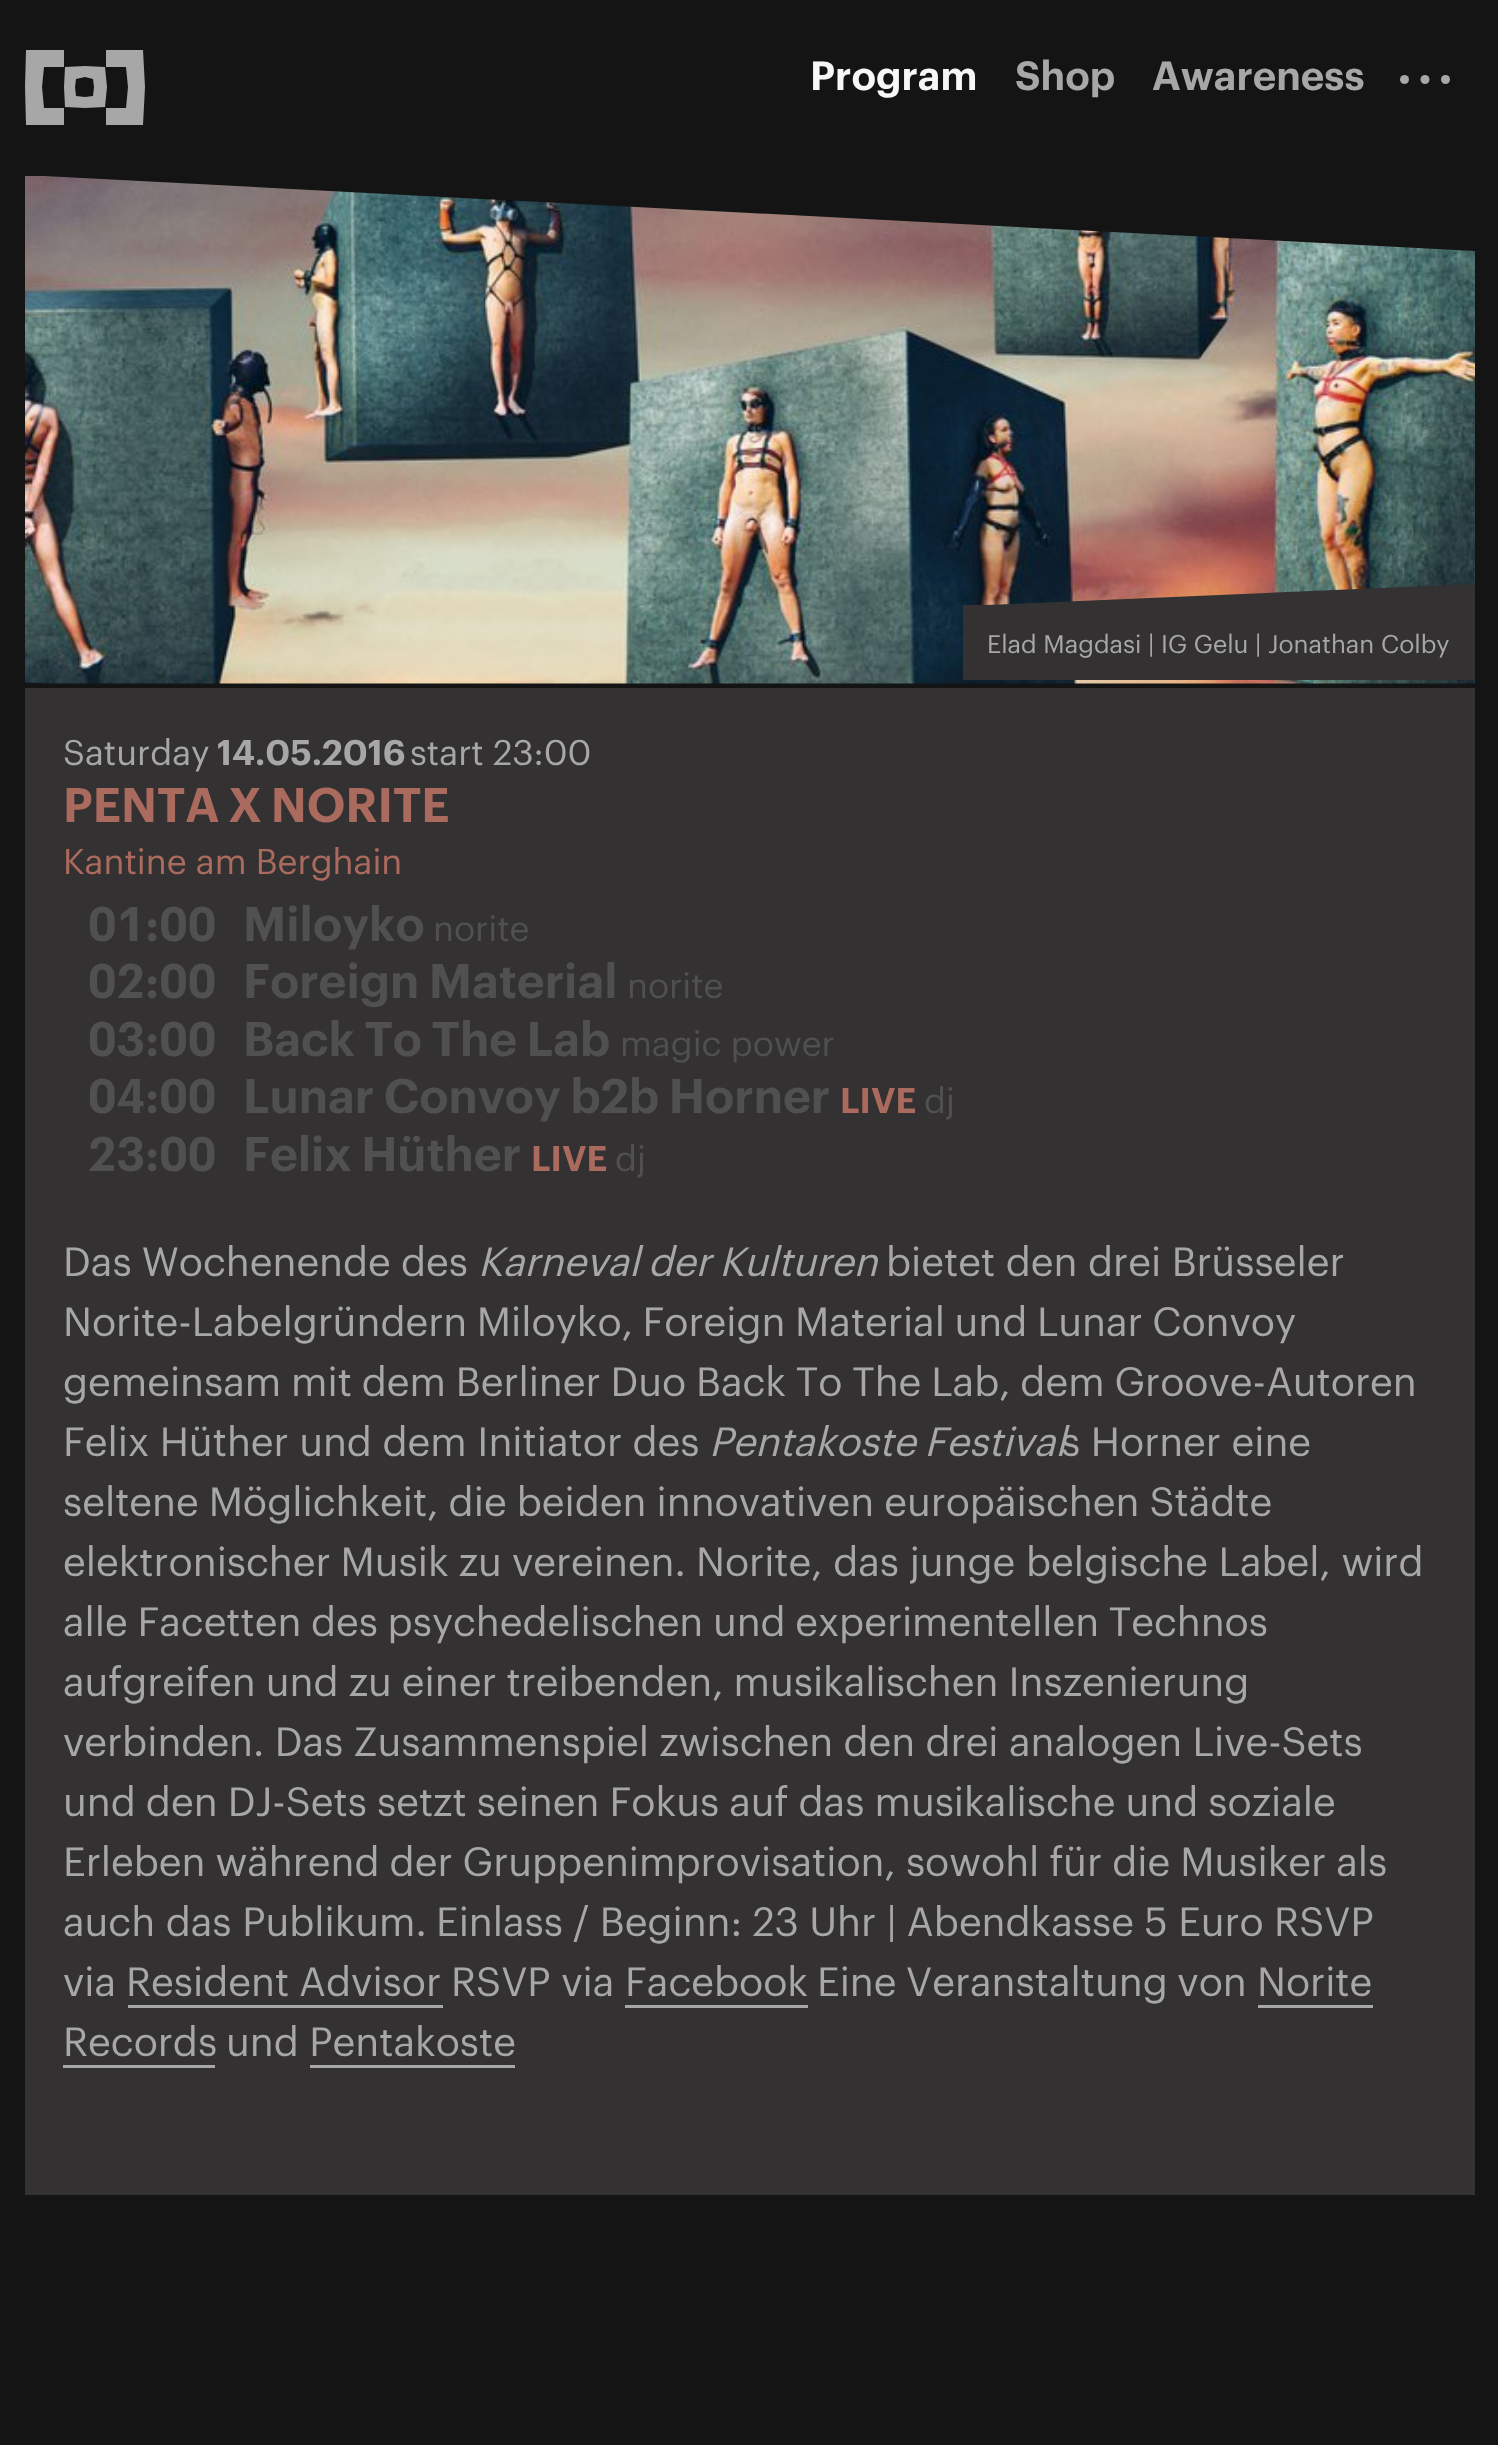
<?xml version="1.0" encoding="UTF-8"?>
<svg xmlns="http://www.w3.org/2000/svg" width="1498" height="2445">
    <style>*{font-kerning:none!important;font-variant-ligatures:none!important}</style>
    <rect width="100%" height="100%" fill="#141414"/>
    <path d="M 64 50 H 26 L 25 87 L 26 125 H 64 V 108 H 44 L 42 87 L 44 67 H 64 Z M 143 125 H 106 V 108 H 126 L 128 87 L 126 67 H 106 V 50 H 143 L 145 87 Z M 65 67 L 85 66 L 105 67 L 107 87 L 105 107 L 85 108 L 65 107 L 64 87 Z M 76 79 L 75 87 L 76 96 L 85 97 L 93 96 L 94 87 L 93 79 L 85 77 Z" fill="#A7A7A7" fill-rule="evenodd"/>
    <text x="810" y="90" font-family="Graphik" font-size="40" font-weight="600" fill="#F7F7F7">Program</text>
    <text x="1015" y="90" font-family="Graphik" font-size="40" font-weight="600" fill="#A7A7A7">Shop</text>
    <text x="1152" y="90" font-family="Graphik" font-size="40" font-weight="600" fill="#A7A7A7">Awareness</text>
    <circle cx="1404.5" cy="79.5" r="4.5" fill="#A7A7A7"/>
    <circle cx="1425" cy="79.5" r="4.5" fill="#A7A7A7"/>
    <circle cx="1445.5" cy="79.5" r="4.5" fill="#A7A7A7"/>
    <image x="25" y="176" width="1450" height="508" href="img_01.png"/>
    <rect x="963" y="605" width="512" height="75" fill="#333131"/>
    <path d="M 1475 584 L 963 606 V 610 H 1475 Z" fill="#333131"/>
    <text x="987" y="653" font-family="Graphik" font-size="25" fill="#A7A7A7">Elad Magdasi | IG Gelu | Jonathan Colby</text>
    <rect x="25" y="688" width="1450" height="1507" fill="#333131"/>
    <text x="63" y="765" font-family="Graphik" font-size="35" fill="#A7A7A7">Saturday</text>
    <text x="217" y="765" font-family="Graphik" font-size="35" font-weight="600" fill="#A7A7A7">14.05.2016</text>
    <text x="410" y="765" font-family="Graphik" font-size="35" fill="#A7A7A7">start 23:00</text>
    <text x="63" y="822" word-spacing="-2" font-family="Graphik" font-size="47.5" font-weight="600" fill="#AA6A5E">PENTA X NORITE</text>
    <text x="63" y="874" font-family="Graphik" font-size="35" fill="#AA6A5E">Kantine am Berghain</text>
    <text x="88" y="941" font-family="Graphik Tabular" font-size="47.5" font-weight="600" fill="#505050">01:00</text>
    <text x="243" y="941" font-family="Graphik" font-size="47.5" font-weight="600" fill="#505050">Miloyko</text>
    <text x="433" y="941" font-family="Graphik" font-size="35" fill="#505050">norite</text>
    <text x="88" y="998" font-family="Graphik Tabular" font-size="47.5" font-weight="600" fill="#505050">02:00</text>
    <text x="243" y="998" word-spacing="-1" font-family="Graphik" font-size="47.5" font-weight="600" fill="#505050">Foreign Material</text>
    <text x="627" y="998" font-family="Graphik" font-size="35" fill="#505050">norite</text>
    <text x="88" y="1056" font-family="Graphik Tabular" font-size="47.5" font-weight="600" fill="#505050">03:00</text>
    <text x="243" y="1056" word-spacing="-1" font-family="Graphik" font-size="47.5" font-weight="600" fill="#505050">Back To The Lab</text>
    <text x="620" y="1056" font-family="Graphik" font-size="35" fill="#505050">magic power</text>
    <text x="88" y="1113" font-family="Graphik Tabular" font-size="47.5" font-weight="600" fill="#505050">04:00</text>
    <text x="243" y="1113" word-spacing="-1" font-family="Graphik" font-size="47.5" font-weight="600" fill="#505050">Lunar Convoy b2b Horner</text>
    <text x="840" y="1113" font-family="Graphik" font-size="35" font-weight="600" fill="#AA6A5E">LIVE</text>
    <text x="924" y="1113" font-family="Graphik" font-size="35" fill="#505050">dj</text>
    <text x="88" y="1171" font-family="Graphik Tabular" font-size="47.5" font-weight="600" fill="#505050">23:00</text>
    <text x="243" y="1171" word-spacing="-1" font-family="Graphik" font-size="47.5" font-weight="600" fill="#505050">Felix Hüther</text>
    <text x="531" y="1171" font-family="Graphik" font-size="35" font-weight="600" fill="#AA6A5E">LIVE</text>
    <text x="615" y="1171" font-family="Graphik" font-size="35" fill="#505050">dj</text>
    <text x="63" y="1276" word-spacing="-0.5" font-family="Graphik" font-size="40" fill="#A7A7A7">Das Wochenende des</text>
    <text x="478" y="1276" word-spacing="-2" font-family="Graphik" font-size="40" font-style="italic" fill="#A7A7A7">Karneval der Kulturen</text>
    <text x="886" y="1276" font-family="Graphik" font-size="40" fill="#A7A7A7">bietet den drei Brüsseler</text>
    <text font-family="Graphik" font-size="40" fill="#A7A7A7">
        <tspan x="63" y="1336" word-spacing="-1">Norite-Labelgründern Miloyko, Foreign Material und Lunar Convoy</tspan>
        <tspan x="63" y="1396" word-spacing="-0.75">gemeinsam mit dem Berliner Duo Back To The Lab, dem Groove-Autoren</tspan>
        <tspan x="63" y="1456">Felix Hüther und dem Initiator des</tspan>
    </text>
    <text x="709" y="1456" word-spacing="-2" font-family="Graphik" font-size="40" font-style="italic" fill="#A7A7A7">Pentakoste Festival</text>
    <text x="1061" y="1456" font-family="Graphik" font-size="40" fill="#A7A7A7">s Horner eine</text>
    <text font-family="Graphik" font-size="40" fill="#A7A7A7">
        <tspan x="63" y="1516" word-spacing="-0.5">seltene Möglichkeit, die beiden innovativen europäischen Städte</tspan>
        <tspan x="63" y="1576" word-spacing="-0.5">elektronischer Musik zu vereinen.</tspan>
    </text>
    <text x="696" y="1576" font-family="Graphik" font-size="40" fill="#A7A7A7">Norite, das junge belgische Label, wird</text>
    <text font-family="Graphik" font-size="40" fill="#A7A7A7">
        <tspan x="63" y="1636" word-spacing="-1">alle Facetten des psychedelischen und experimentellen Technos</tspan>
        <tspan x="63" y="1696" word-spacing="-0.5">aufgreifen und zu einer treibenden, musikalischen Inszenierung</tspan>
        <tspan x="63" y="1756" word-spacing="-0.25">verbinden. Das Zusammenspiel zwischen den drei analogen Live-Sets</tspan>
        <tspan x="63" y="1816" word-spacing="-0.5">und den DJ-Sets setzt seinen Fokus auf das musikalische und soziale</tspan>
        <tspan x="63" y="1876" word-spacing="-0.5">Erleben während der Gruppenimprovisation, sowohl für die Musiker als</tspan>
        <tspan x="63" y="1936">auch das Publikum.</tspan>
    </text>
    <text x="436" y="1936" word-spacing="-0.25" font-family="Graphik" font-size="40" fill="#A7A7A7">Einlass / Beginn: 23 Uhr | Abendkasse 5 Euro RSVP</text>
    <text x="63" y="1996" font-family="Graphik" font-size="40" fill="#A7A7A7">via</text>
    <text x="126" y="1996" word-spacing="-0.75" font-family="Graphik" font-size="40" fill="#A7A7A7">Resident Advisor</text>
    <rect x="128" y="2005" width="315" height="3" fill="#A7A7A7"/>
    <text x="451" y="1996" font-family="Graphik" font-size="40" fill="#A7A7A7">RSVP via</text>
    <text x="625" y="1996" font-family="Graphik" font-size="40" fill="#A7A7A7">Facebook</text>
    <rect x="625" y="2005" width="183" height="3" fill="#A7A7A7"/>
    <text x="817" y="1996" word-spacing="-1" font-family="Graphik" font-size="40" fill="#A7A7A7">Eine Veranstaltung von</text>
    <text x="1257" y="1996" font-family="Graphik" font-size="40" fill="#A7A7A7">Norite</text>
    <rect x="1258" y="2005" width="115" height="3" fill="#A7A7A7"/>
    <text x="63" y="2056" font-family="Graphik" font-size="40" fill="#A7A7A7">Records</text>
    <rect x="63" y="2065" width="152" height="3" fill="#A7A7A7"/>
    <text x="226" y="2056" font-family="Graphik" font-size="40" fill="#A7A7A7">und Pentakoste</text>
    <rect x="310" y="2065" width="205" height="3" fill="#A7A7A7"/>
</svg>
